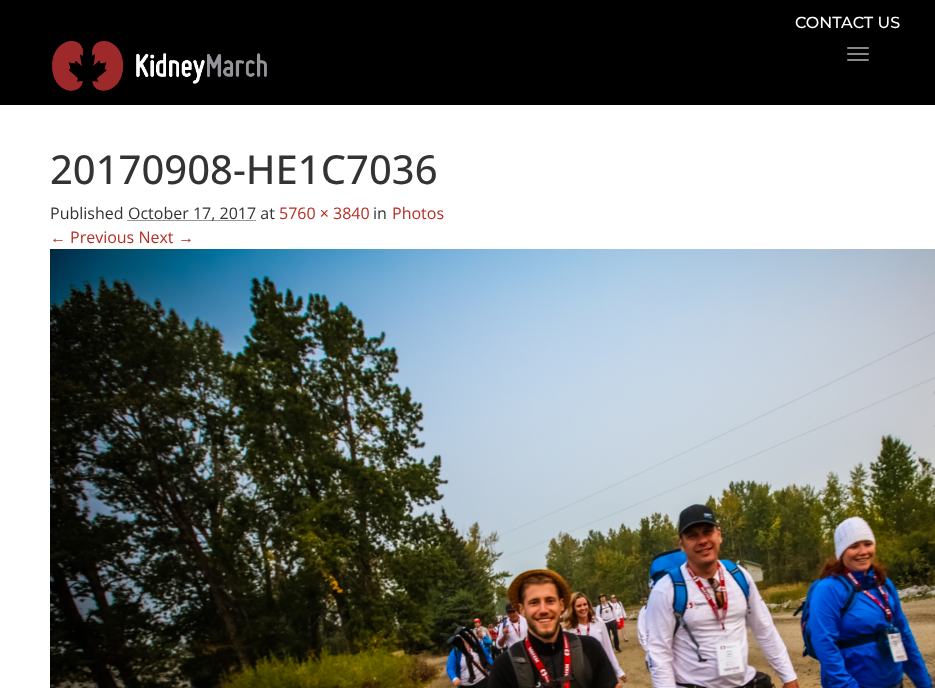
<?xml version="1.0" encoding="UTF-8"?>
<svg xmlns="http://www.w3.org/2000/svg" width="935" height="688">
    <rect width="100%" height="100%" fill="#000000"/>
    <text x="795" y="28" font-family="Montserrat" font-size="16" font-weight="500" fill="#FFFFFF">CONTACT US</text>
    <image x="51" y="40" width="216" height="51" href="img_01.png"/>
    <rect x="847" y="47" width="22" height="2" rx="1" fill="#888888"/>
    <rect x="847" y="53" width="22" height="2" rx="1" fill="#888888"/>
    <rect x="847" y="59" width="22" height="2" rx="1" fill="#888888"/>
    <rect x="0" y="105" width="935" height="583" fill="#FFFFFF"/>
    <text x="50" y="184" font-family="Open Sans" font-size="40" font-weight="500" fill="#333333">20170908-HE1C7036</text>
    <text x="50" y="219" font-family="Open Sans" font-size="16" fill="#333333">Published</text>
    <path d="M 127.5 220.5 H 256" fill="none" stroke="#333333" stroke-dasharray="1 1"/>
    <text x="128" y="219" font-family="Open Sans" font-size="16" fill="#333333">October 17, 2017 at</text>
    <text x="279" y="219" font-family="Open Sans" font-size="16" fill="#B62D23">5760 × 3840</text>
    <text x="373" y="219" font-family="Open Sans" font-size="16" fill="#333333">in</text>
    <text x="392" y="219" font-family="Open Sans" font-size="16" fill="#B62D23">Photos</text>
    <text x="50" y="243" font-family="Liberation Serif" font-size="16" fill="#B62D23">←</text>
    <text x="70" y="243" font-family="Open Sans" font-size="16" fill="#B62D23">Previous Next</text>
    <text x="178" y="243" font-family="Liberation Serif" font-size="16" fill="#B62D23">→</text>
    <image x="50" y="249" width="885" height="439" href="img_02.png"/>
</svg>
